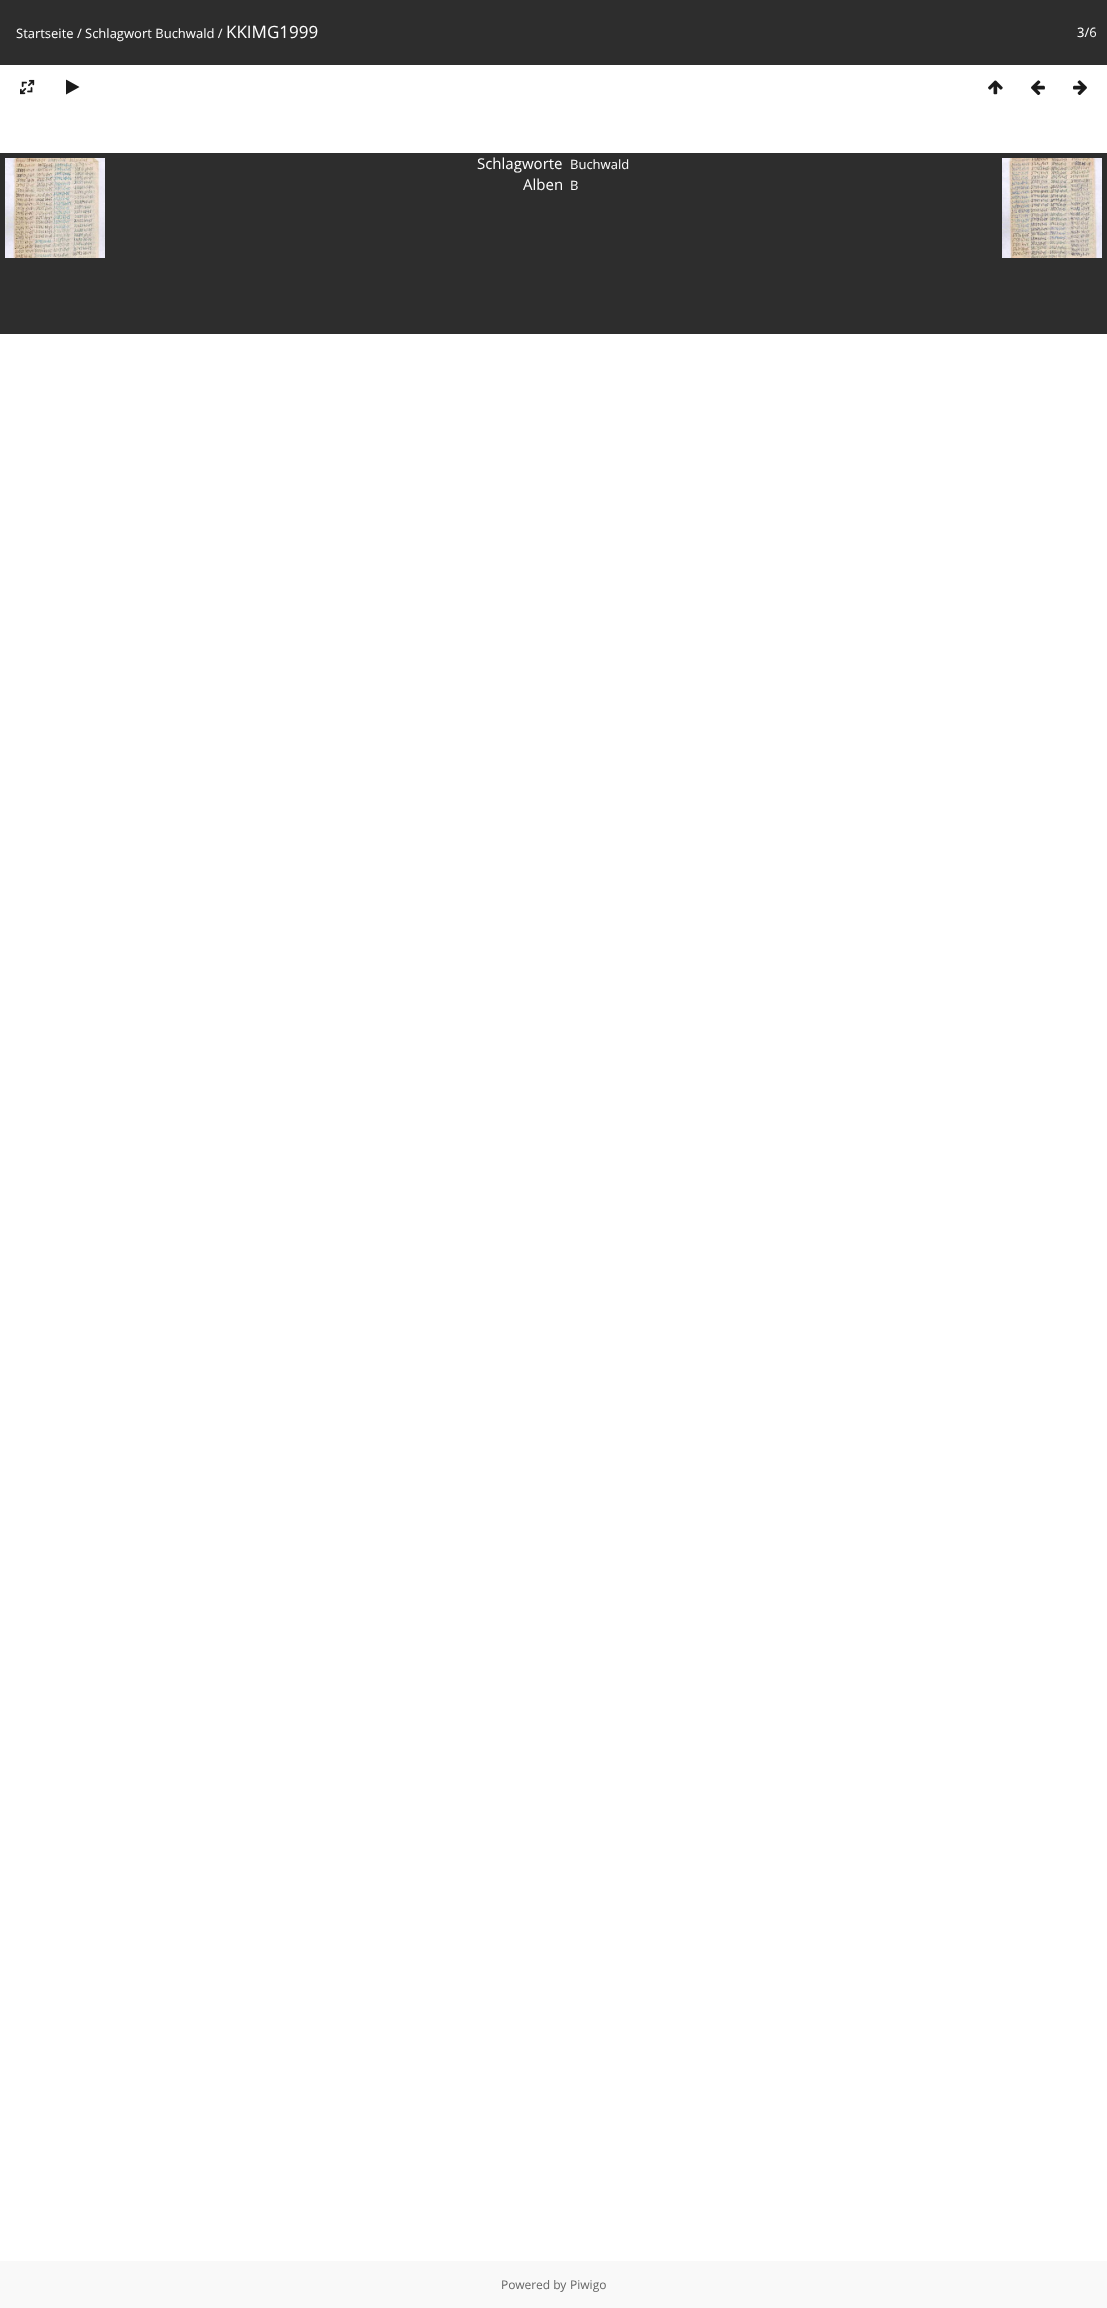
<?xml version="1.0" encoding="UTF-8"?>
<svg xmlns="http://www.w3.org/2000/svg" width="1107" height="2308">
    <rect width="100%" height="100%" fill="#FFFFFF"/>
    <rect x="0" y="0" width="1107" height="65" fill="#2D2D2D"/>
    <text x="16" y="38" font-family="Open Sans" font-size="13" fill="#FFFFFF">Startseite / Schlagwort Buchwald /</text>
    <text x="226" y="38" font-family="Open Sans" font-size="17" fill="#FFFFFF">KKIMG1999</text>
    <text x="1077" y="37" font-family="Open Sans" font-size="13" fill="#FFFFFF">3/6</text>
    <image x="20" y="79" width="15" height="16" href="img_01.png"/>
    <text x="66" y="93" font-family="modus" font-size="17" fill="#1A1A1A">▶</text>
    <text x="988" y="93" font-family="modus" font-size="17" fill="#1A1A1A">↑</text>
    <text x="1031" y="93" font-family="modus" font-size="17" fill="#1A1A1A">←</text>
    <text x="1073" y="93" font-family="modus" font-size="17" fill="#1A1A1A">→</text>
    <rect x="0" y="153" width="1107" height="181" fill="#2D2D2D"/>
    <text x="477" y="169" font-family="Open Sans" font-size="15" fill="#FFFFFF">Schlagworte</text>
    <text x="570" y="169" font-family="Open Sans" font-size="13" fill="#FFFFFF">Buchwald</text>
    <text x="523" y="190" font-family="Open Sans" font-size="15" fill="#FFFFFF">Alben</text>
    <text x="570" y="190" font-family="Open Sans" font-size="13" fill="#FFFFFF">B</text>
    <image x="5" y="158" width="100" height="100" href="img_02.png"/>
    <image x="1002" y="158" width="100" height="100" href="img_03.png"/>
    <rect x="0" y="2261" width="1107" height="47" fill="#F9F9F9"/>
    <text x="501" y="2289" font-family="Open Sans" font-size="12" fill="#666666">Powered by</text>
    <text x="570" y="2289" font-family="Open Sans" font-size="12" fill="#666666">Piwigo</text>
</svg>
